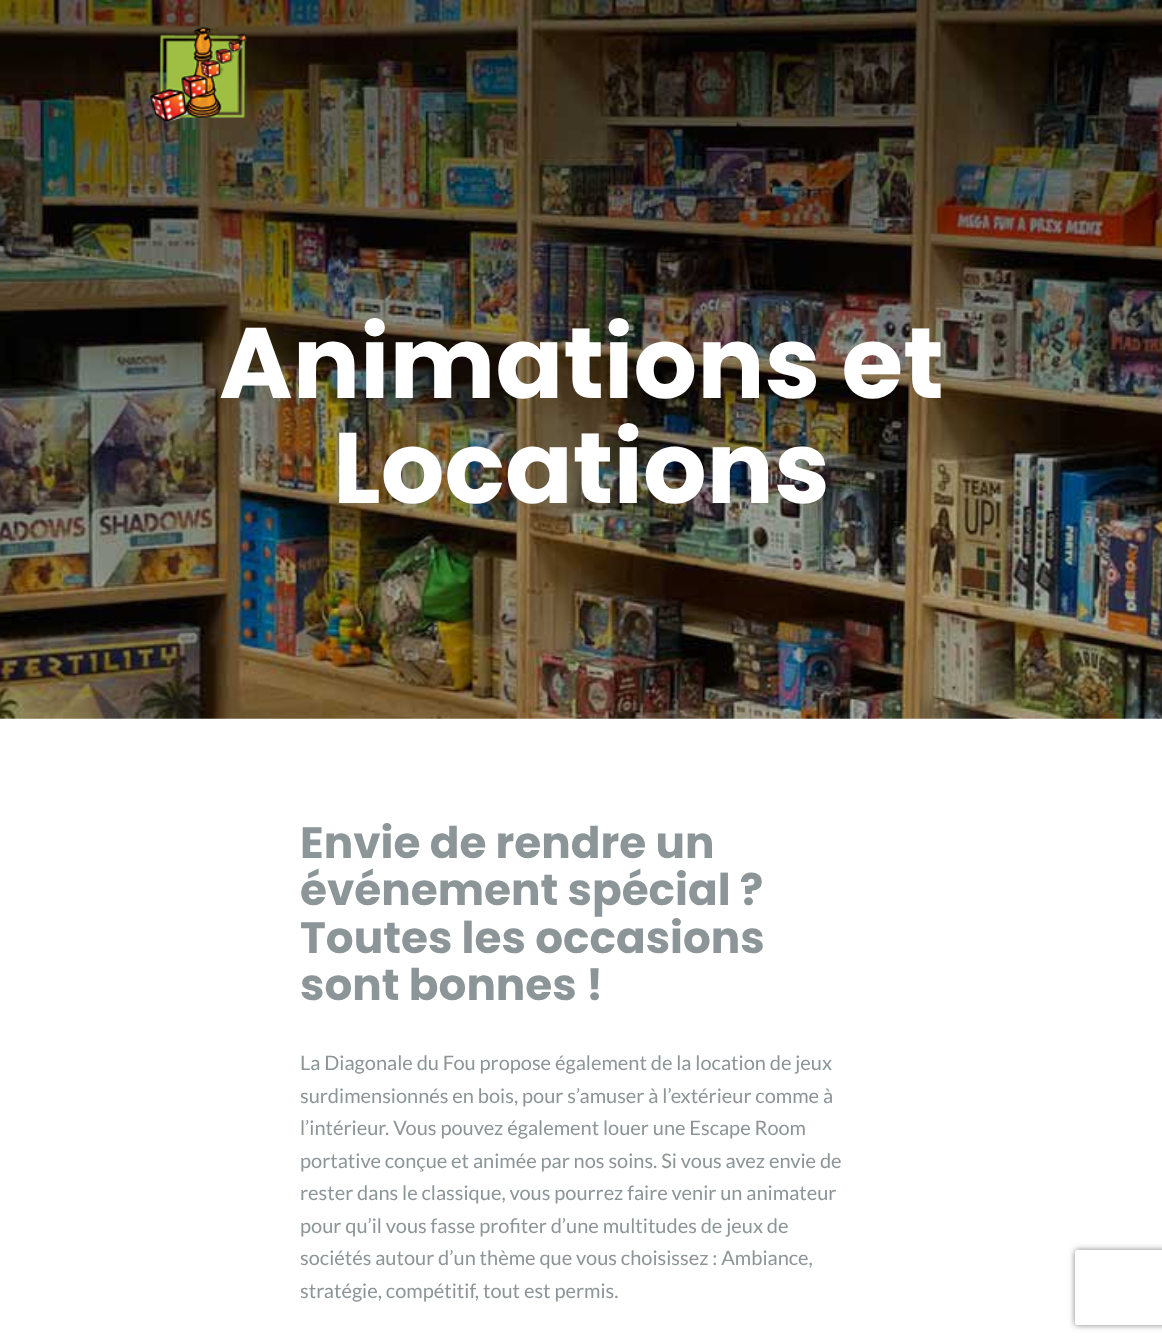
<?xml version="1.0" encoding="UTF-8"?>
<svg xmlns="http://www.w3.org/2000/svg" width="1162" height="1342">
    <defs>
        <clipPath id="clip1"><path d="M 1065 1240 H 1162 V 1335 H 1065 Z M 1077.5 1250 H 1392.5 C 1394 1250 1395 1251 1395 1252.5 V 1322.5 C 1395 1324 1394 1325 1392.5 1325 H 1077.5 C 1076 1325 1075 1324 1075 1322.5 V 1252.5 C 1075 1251 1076 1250 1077.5 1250 Z" clip-rule="evenodd"/></clipPath>
        <filter id="blur1" x="-50%" y="-200%" width="200%" height="500%"><feGaussianBlur stdDeviation="3"/></filter>
    </defs>
    <rect width="100%" height="100%" fill="#FFFFFF"/>
    <image x="0" y="0" width="1162" height="719" href="img_01.png"/>
    <image x="150" y="27" width="97" height="95" href="img_02.png"/>
    <text x="219" y="398" font-family="Poppins" font-size="100" font-weight="700" fill="#FFFFFF">Animations et</text>
    <text x="333" y="503" font-family="Poppins" font-size="100" font-weight="700" fill="#FFFFFF">Locations</text>
    <text font-family="Poppins" font-size="43.75" font-weight="700" fill="#8C9597">
        <tspan x="300" y="858">Envie de rendre un</tspan>
        <tspan x="300" y="905">événement spécial ?</tspan>
        <tspan x="300" y="953">Toutes les occasions</tspan>
        <tspan x="300" y="1000">sont bonnes !</tspan>
    </text>
    <text font-family="Lato" font-size="20" fill="#8C9597">
        <tspan x="300" y="1070">La Diagonale du Fou propose également de la location de jeux</tspan>
        <tspan x="300" y="1103">surdimensionnés en bois, pour s’amuser à l’extérieur comme à</tspan>
        <tspan x="300" y="1135">l’intérieur. Vous pouvez également louer une Escape Room</tspan>
        <tspan x="300" y="1168">portative conçue et animée par nos soins. Si vous avez envie de</tspan>
        <tspan x="300" y="1200">rester dans le classique, vous pourrez faire venir un animateur</tspan>
        <tspan x="300" y="1233">pour qu’il vous fasse profiter d’une multitudes de jeux de</tspan>
        <tspan x="300" y="1265">sociétés autour d’un thème que vous choisissez : Ambiance,</tspan>
        <tspan x="300" y="1298">stratégie, compétitif, tout est permis.</tspan>
    </text>
    <g clip-path="url(#clip1)">
        <rect x="1075" y="1250" width="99" height="75" rx="2.5" fill="#808080" filter="url(#blur1)"/>
    </g>
</svg>
